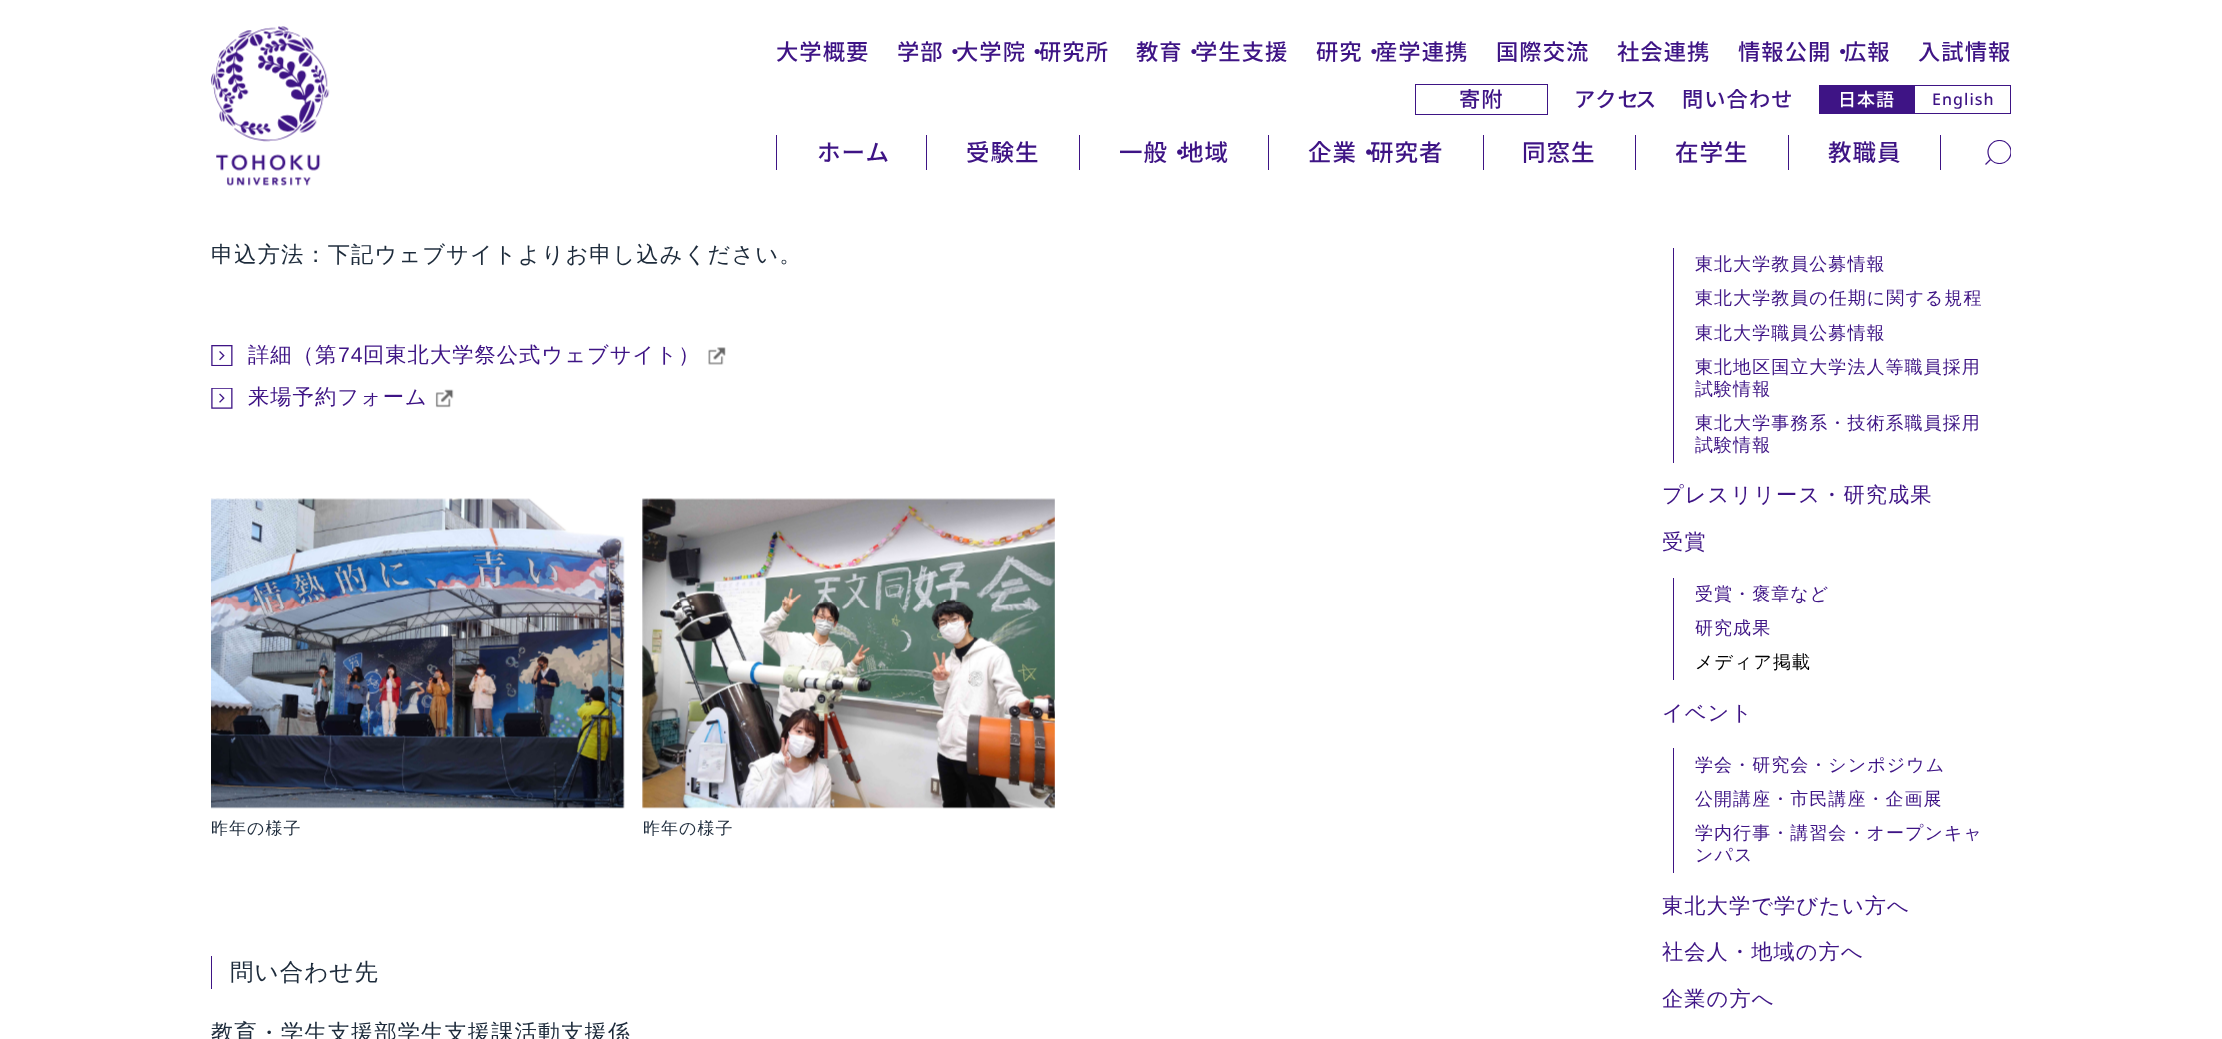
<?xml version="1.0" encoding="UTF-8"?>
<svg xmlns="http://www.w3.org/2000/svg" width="2222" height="1039">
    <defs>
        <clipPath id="clip1"><rect x="1985" y="140" width="26" height="24"/></clipPath>
    </defs>
    <rect width="100%" height="100%" fill="#FFFFFF"/>
    <image x="211" y="26" width="119" height="160" href="img_01.png"/>
    <text x="776" y="60" font-family="Noto Sans JP" font-size="22.3" font-weight="500" letter-spacing="1.05" fill="#3E1485">大学概要</text>
    <text x="897" y="60" font-family="Noto Sans JP" font-size="22.3" font-weight="500" letter-spacing="1.05" fill="#3E1485">学部・</text>
    <text x="956" y="60" font-family="Noto Sans JP" font-size="22.3" font-weight="500" letter-spacing="1.05" fill="#3E1485">大学院・</text>
    <text x="1039" y="60" font-family="Noto Sans JP" font-size="22.3" font-weight="500" letter-spacing="1.05" fill="#3E1485">研究所</text>
    <text x="1136" y="60" font-family="Noto Sans JP" font-size="22.3" font-weight="500" letter-spacing="1.05" fill="#3E1485">教育・</text>
    <text x="1195" y="60" font-family="Noto Sans JP" font-size="22.3" font-weight="500" letter-spacing="1.05" fill="#3E1485">学生支援</text>
    <text x="1316" y="60" font-family="Noto Sans JP" font-size="22.3" font-weight="500" letter-spacing="1.05" fill="#3E1485">研究・</text>
    <text x="1375" y="60" font-family="Noto Sans JP" font-size="22.3" font-weight="500" letter-spacing="1.05" fill="#3E1485">産学連携</text>
    <text x="1496" y="60" font-family="Noto Sans JP" font-size="22.3" font-weight="500" letter-spacing="1.05" fill="#3E1485">国際交流</text>
    <text x="1617" y="60" font-family="Noto Sans JP" font-size="22.3" font-weight="500" letter-spacing="1.05" fill="#3E1485">社会連携</text>
    <text x="1738" y="60" font-family="Noto Sans JP" font-size="22.3" font-weight="500" letter-spacing="1.05" fill="#3E1485">情報公開・</text>
    <text x="1844" y="60" font-family="Noto Sans JP" font-size="22.3" font-weight="500" letter-spacing="1.05" fill="#3E1485">広報</text>
    <text x="1918" y="60" font-family="Noto Sans JP" font-size="22.3" font-weight="500" letter-spacing="1.05" fill="#3E1485">入試情報</text>
    <rect x="1415.5" y="84.5" width="132" height="30" fill="none" stroke="#3E1485"/>
    <text x="1459" y="107" font-family="Noto Sans JP" font-size="21.25" font-weight="500" letter-spacing="1.05" fill="#3E1485">寄附</text>
    <text x="1574" y="107" font-family="Noto Sans JP" font-size="21.25" font-weight="500" letter-spacing="1.05" fill="#3E1485">アクセ</text>
    <text x="1635" y="107" font-family="Noto Sans JP" font-size="21.25" font-weight="500" letter-spacing="1.05" fill="#3E1485">ス</text>
    <text x="1682" y="107" font-family="Noto Sans JP" font-size="21.25" font-weight="500" letter-spacing="1.05" fill="#3E1485">問い合わせ</text>
    <rect x="1819" y="85" width="95" height="29" fill="#3E1485"/>
    <text x="1838" y="106" font-family="Noto Sans JP" font-size="18" font-weight="500" letter-spacing="1.05" fill="#FFFFFF">日本語</text>
    <rect x="1914.5" y="85.5" width="96" height="28" fill="none" stroke="#3E1485"/>
    <text x="1932" y="105" font-family="Noto Sans" font-size="16" font-weight="500" letter-spacing="1.05" fill="#3E1485">English</text>
    <rect x="776" y="135" width="1" height="35" fill="#3E1485"/>
    <text x="817" y="161" font-family="Noto Sans JP" font-size="23.5" font-weight="500" letter-spacing="1.05" fill="#3E1485">ホーム</text>
    <rect x="926" y="135" width="1" height="35" fill="#3E1485"/>
    <text x="966" y="161" font-family="Noto Sans JP" font-size="23.5" font-weight="500" letter-spacing="1.05" fill="#3E1485">受験生</text>
    <rect x="1079" y="135" width="1" height="35" fill="#3E1485"/>
    <text x="1119" y="161" font-family="Noto Sans JP" font-size="23.5" font-weight="500" letter-spacing="1.05" fill="#3E1485">一般・</text>
    <text x="1180" y="161" font-family="Noto Sans JP" font-size="23.5" font-weight="500" letter-spacing="1.05" fill="#3E1485">地域</text>
    <rect x="1268" y="135" width="1" height="35" fill="#3E1485"/>
    <text x="1308" y="161" font-family="Noto Sans JP" font-size="23.5" font-weight="500" letter-spacing="1.05" fill="#3E1485">企業・</text>
    <text x="1370" y="161" font-family="Noto Sans JP" font-size="23.5" font-weight="500" letter-spacing="1.05" fill="#3E1485">研究者</text>
    <rect x="1483" y="135" width="1" height="35" fill="#3E1485"/>
    <text x="1522" y="161" font-family="Noto Sans JP" font-size="23.5" font-weight="500" letter-spacing="1.05" fill="#3E1485">同窓生</text>
    <rect x="1635" y="135" width="1" height="35" fill="#3E1485"/>
    <text x="1675" y="161" font-family="Noto Sans JP" font-size="23.5" font-weight="500" letter-spacing="1.05" fill="#3E1485">在学生</text>
    <rect x="1940" y="135" width="1" height="35" fill="#3E1485"/>
    <rect x="1788" y="135" width="1" height="35" fill="#3E1485"/>
    <text x="1828" y="161" font-family="Noto Sans JP" font-size="23.5" font-weight="500" letter-spacing="1.05" fill="#3E1485">教職員</text>
    <g clip-path="url(#clip1)">
        <circle cx="1999.5" cy="152" r="11.5" fill="none" stroke="#3E1485" stroke-width="1.2"/>
    </g>
    <path d="M 1990.5 159.5 L 1985.5 164.5" fill="none" stroke="#3E1485" stroke-width="1.2"/>
    <text x="211" y="262" font-family="WenQuanYi Zen Hei" font-size="22.3" font-weight="500" letter-spacing="1.05" fill="#1D2B3B">申込方法：下記ウェブサイトよりお申し込みください。</text>
    <image x="211" y="345" width="22" height="21" href="img_02.png"/>
    <text x="248" y="362" font-family="WenQuanYi Zen Hei" font-size="21.25" font-weight="500" letter-spacing="1.05" fill="#3E1485">詳細（第</text>
    <text x="338" y="362" font-family="Liberation Sans" font-size="21.25" letter-spacing="1.05" fill="#3E1485">74</text>
    <text x="363" y="362" font-family="WenQuanYi Zen Hei" font-size="21.25" font-weight="500" letter-spacing="1.05" fill="#3E1485">回東北大学祭公式ウェブサイト）</text>
    <image x="708" y="347" width="18" height="18" href="img_03.png"/>
    <image x="211" y="388" width="22" height="21" href="img_04.png"/>
    <text x="248" y="404" font-family="WenQuanYi Zen Hei" font-size="21.25" font-weight="500" letter-spacing="1.05" fill="#3E1485">来場予約フォーム</text>
    <image x="435" y="389" width="19" height="19" href="img_05.png"/>
    <image x="211" y="498" width="414" height="311" href="img_06.png"/>
    <text x="211" y="834" font-family="WenQuanYi Zen Hei" font-size="17" font-weight="500" letter-spacing="1.05" fill="#1D2B3B">昨年の様子</text>
    <image x="642" y="498" width="413" height="311" href="img_07.png"/>
    <text x="643" y="834" font-family="WenQuanYi Zen Hei" font-size="17" font-weight="500" letter-spacing="1.05" fill="#1D2B3B">昨年の様子</text>
    <rect x="211" y="956" width="1" height="33" fill="#3E1485"/>
    <text x="230" y="980" font-family="WenQuanYi Zen Hei" font-size="23.5" font-weight="500" letter-spacing="1.05" fill="#1D2B3B">問い合わせ先</text>
    <text x="211" y="1040" font-family="WenQuanYi Zen Hei" font-size="22.3" font-weight="500" letter-spacing="1.05" fill="#1D2B3B">教育・学生支援部学生支援課活動支援係</text>
    <rect x="1673" y="248" width="1" height="215" fill="#3E1485"/>
    <text font-family="WenQuanYi Zen Hei" font-size="18" font-weight="500" letter-spacing="1.05" fill="#3E1485">
        <tspan x="1695" y="270">東北大学教員公募情報</tspan>
        <tspan x="1695" y="304">東北大学教員の任期に関する規程</tspan>
        <tspan x="1695" y="339">東北大学職員公募情報</tspan>
        <tspan x="1695" y="373">東北地区国立大学法人等職員採用</tspan>
        <tspan x="1695" y="395">試験情報</tspan>
        <tspan x="1695" y="429">東北大学事務系・技術系職員採用</tspan>
        <tspan x="1695" y="451">試験情報</tspan>
    </text>
    <text x="1662" y="502" font-family="WenQuanYi Zen Hei" font-size="21.25" font-weight="500" letter-spacing="1.05" fill="#3E1485">プレスリリース・研究成果</text>
    <text x="1662" y="549" font-family="WenQuanYi Zen Hei" font-size="21.25" font-weight="500" letter-spacing="1.05" fill="#3E1485">受賞</text>
    <rect x="1673" y="578" width="1" height="102" fill="#3E1485"/>
    <text font-family="WenQuanYi Zen Hei" font-size="18" font-weight="500" letter-spacing="1.05" fill="#3E1485">
        <tspan x="1695" y="600">受賞・褒章など</tspan>
        <tspan x="1695" y="634">研究成果</tspan>
    </text>
    <text x="1695" y="668" font-family="WenQuanYi Zen Hei" font-size="18" font-weight="500" letter-spacing="1.05" fill="#000000">メディア掲載</text>
    <text x="1662" y="720" font-family="WenQuanYi Zen Hei" font-size="21.25" font-weight="500" letter-spacing="1.05" fill="#3E1485">イベント</text>
    <rect x="1673" y="748" width="1" height="125" fill="#3E1485"/>
    <text font-family="WenQuanYi Zen Hei" font-size="18" font-weight="500" letter-spacing="1.05" fill="#3E1485">
        <tspan x="1695" y="771">学会・研究会・シンポジウム</tspan>
        <tspan x="1695" y="805">公開講座・市民講座・企画展</tspan>
        <tspan x="1695" y="839">学内行事・講習会・オープンキャ</tspan>
        <tspan x="1695" y="861">ンパス</tspan>
    </text>
    <text x="1662" y="913" font-family="WenQuanYi Zen Hei" font-size="21.25" font-weight="500" letter-spacing="1.05" fill="#3E1485">東北大学で学びたい方へ</text>
    <text x="1662" y="959" font-family="WenQuanYi Zen Hei" font-size="21.25" font-weight="500" letter-spacing="1.05" fill="#3E1485">社会人・地域の方へ</text>
    <text x="1662" y="1006" font-family="WenQuanYi Zen Hei" font-size="21.25" font-weight="500" letter-spacing="1.05" fill="#3E1485">企業の方へ</text>
</svg>
